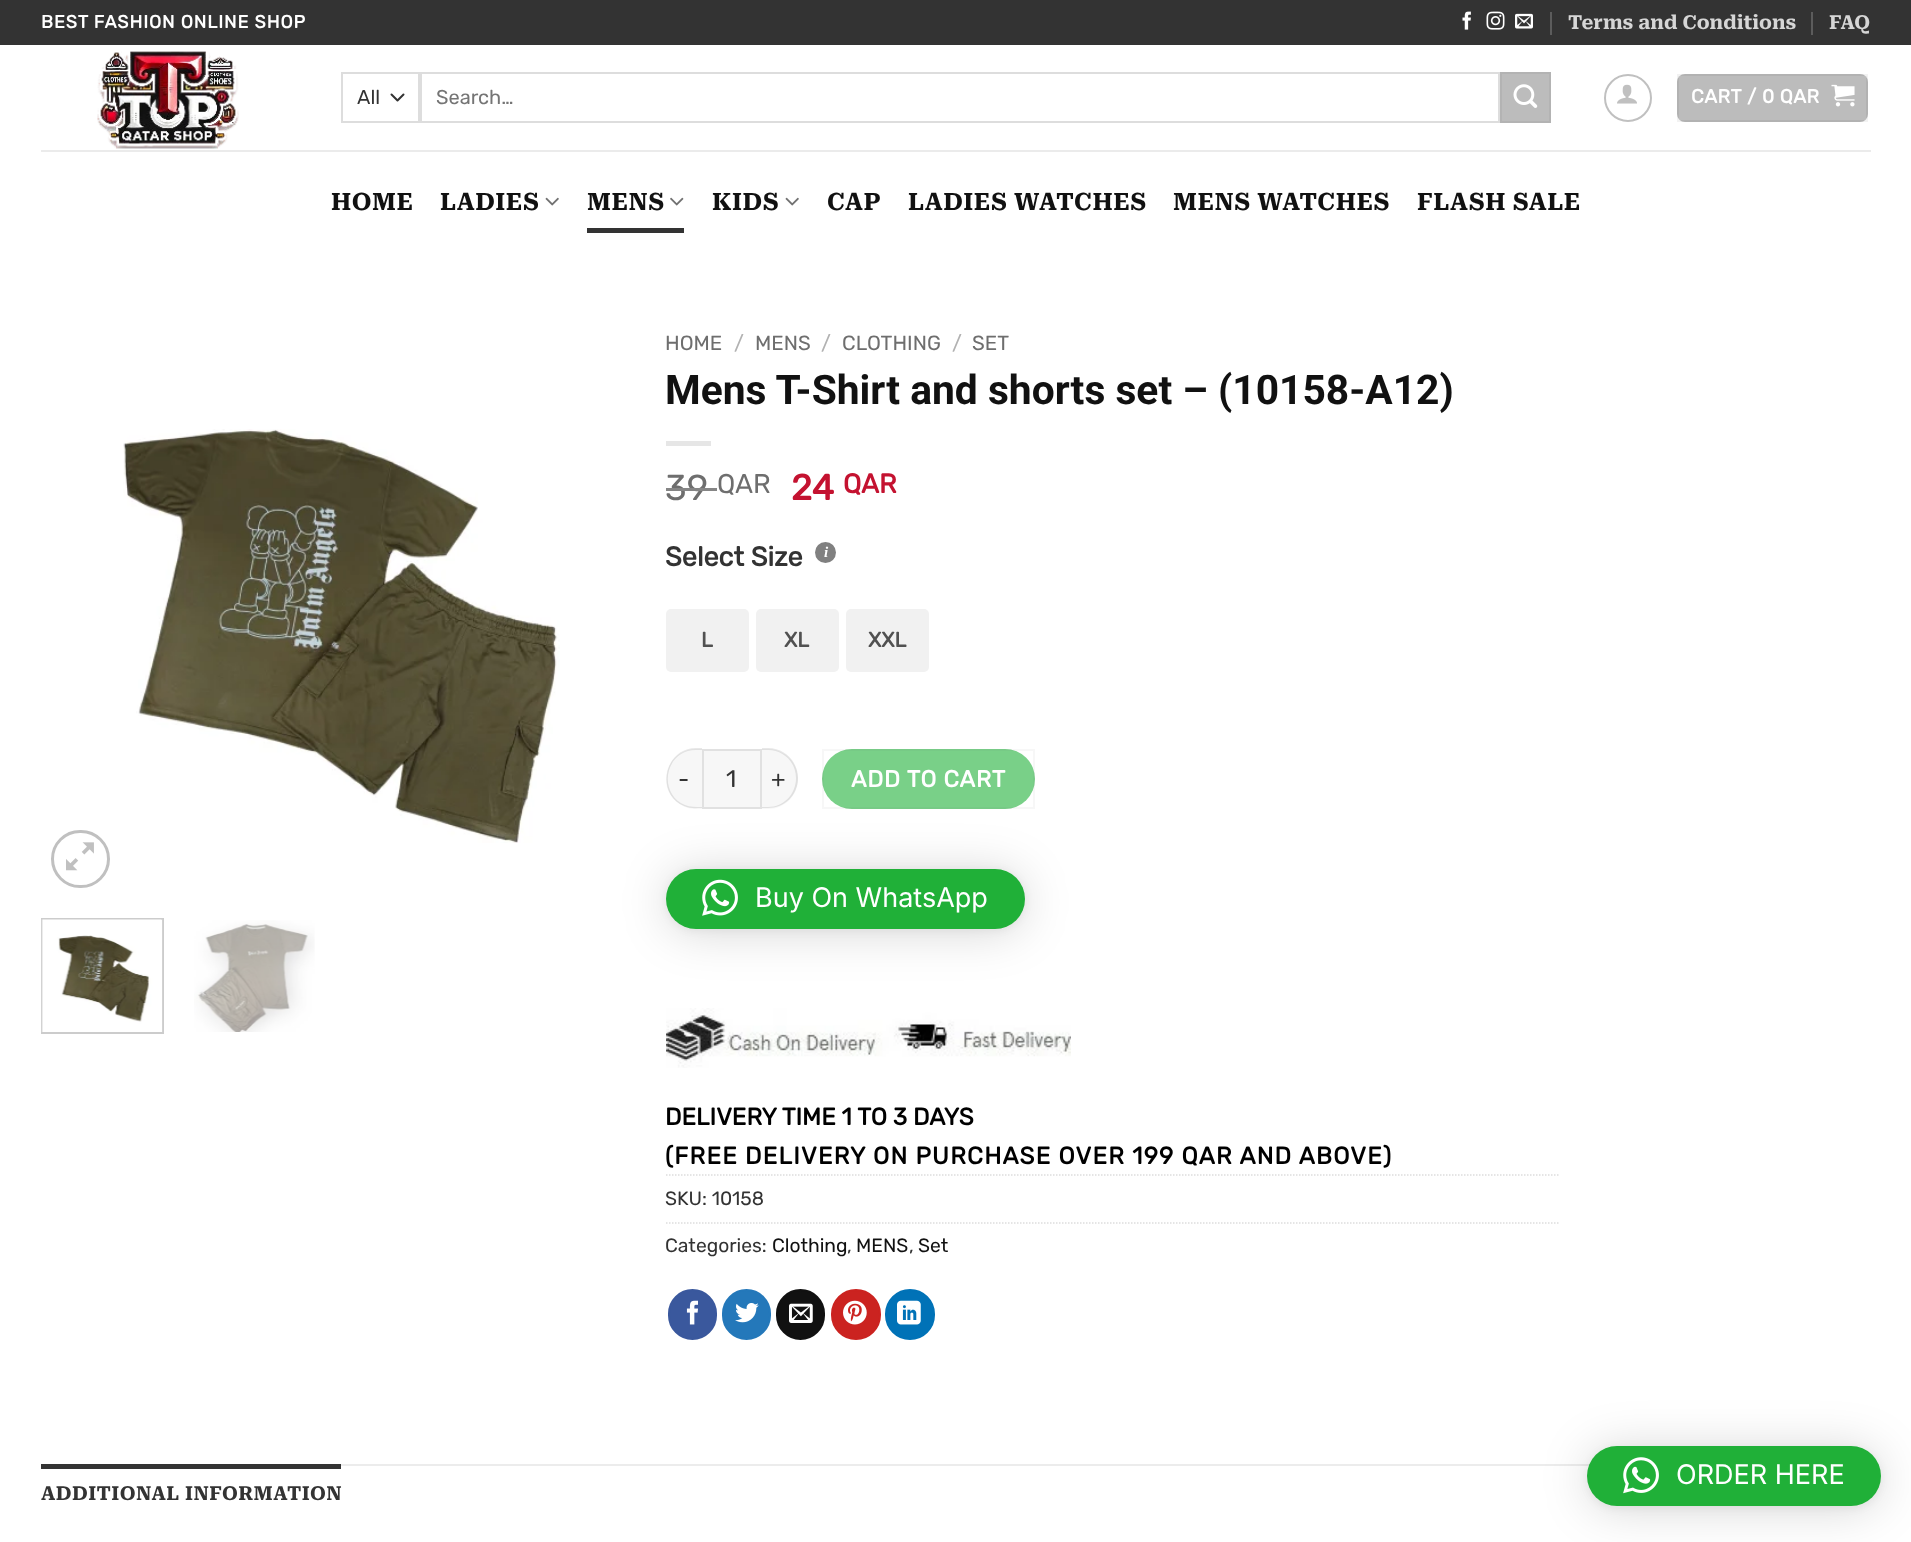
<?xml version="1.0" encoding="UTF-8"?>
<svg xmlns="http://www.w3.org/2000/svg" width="1911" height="1542">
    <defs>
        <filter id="blur1" x="-50%" y="-200%" width="200%" height="500%"><feGaussianBlur stdDeviation="24"/></filter>
        <filter id="blur2" x="-50%" y="-200%" width="200%" height="500%"><feGaussianBlur stdDeviation="4.5"/></filter>
    </defs>
    <rect width="100%" height="100%" fill="#FFFFFF"/>
    <rect x="0" y="0" width="1911" height="45" fill="#333333"/>
    <text x="41" y="28" font-family="Rubik" font-size="18" font-weight="700" letter-spacing="0.9" fill="#FFFFFF">BEST FASHION ONLINE SHOP</text>
    <image x="1462" y="11" width="9" height="19" href="img_01.png"/>
    <image x="1486" y="11" width="19" height="19" href="img_02.png"/>
    <image x="1515" y="13" width="18" height="16" href="img_03.png"/>
    <rect x="1550" y="12" width="2" height="23" fill="#5C5C5C"/>
    <text x="1568" y="29" font-family="Roboto Serif" font-size="19.25" font-weight="700" fill="#D6D6D6">Terms and Conditions</text>
    <rect x="1811" y="12" width="2" height="23" fill="#5C5C5C"/>
    <text x="1829" y="29" font-family="Roboto Serif" font-size="19.25" font-weight="700" fill="#D6D6D6">FAQ</text>
    <image x="97" y="51" width="142" height="98" href="img_04.png"/>
    <path d="M 391.5 94.5 L 397.5 100.5 L 403.5 94.5" fill="none" stroke="#333333" stroke-width="2" stroke-linecap="round" stroke-linejoin="round"/>
    <rect x="342" y="73" width="77" height="49" fill="none" stroke="#DDDDDD" stroke-width="2"/>
    <text x="357" y="104" font-family="Rubik" font-size="20" font-weight="300" fill="#333333">All</text>
    <rect x="421" y="73" width="1078" height="49" fill="none" stroke="#DDDDDD" stroke-width="2"/>
    <text x="436" y="104" font-family="Rubik" font-size="20" font-weight="300" fill="#757575">Search…</text>
    <rect x="1501" y="73" width="49" height="49" fill="#BCBCBC" stroke="#B3B3B3" stroke-width="2"/>
    <image x="1513" y="84" width="25" height="24" href="img_05.png"/>
    <circle cx="1628" cy="98" r="23" fill="none" stroke="#C0C0C0" stroke-width="2"/>
    <image x="1617" y="84" width="20" height="20" href="img_06.png"/>
    <rect x="1677" y="74" width="191" height="48" rx="8" fill="#BCBCBC"/>
    <rect x="1678" y="75" width="189" height="46" fill="none" stroke="#000000" stroke-opacity="0.05" stroke-width="2"/>
    <text x="1691" y="103" font-family="Rubik" font-size="19.25" font-weight="700" letter-spacing="0.5" fill="#FFFFFF">CART / 0 QAR</text>
    <image x="1831" y="84" width="24" height="23" href="img_07.png"/>
    <rect x="41" y="150" width="1830" height="2" fill="#EBEBEB"/>
    <text x="331" y="210" font-family="Roboto Serif" font-size="24" font-weight="700" letter-spacing="0.5" fill="#111111">HOME</text>
    <text x="440" y="210" font-family="Roboto Serif" font-size="24" font-weight="700" letter-spacing="0.5" fill="#111111">LADIES</text>
    <image x="545" y="197" width="14" height="9" href="img_08.png"/>
    <text x="587" y="210" font-family="Roboto Serif" font-size="24" font-weight="700" letter-spacing="0.5" fill="#111111">MENS</text>
    <image x="670" y="197" width="14" height="9" href="img_09.png"/>
    <rect x="587" y="228" width="97" height="5" fill="#333333"/>
    <text x="712" y="210" font-family="Roboto Serif" font-size="24" font-weight="700" letter-spacing="0.5" fill="#111111">KIDS</text>
    <image x="785" y="197" width="14" height="9" href="img_08.png"/>
    <text x="827" y="210" font-family="Roboto Serif" font-size="24" font-weight="700" letter-spacing="0.5" fill="#111111">CAP</text>
    <text x="908" y="210" font-family="Roboto Serif" font-size="24" font-weight="700" letter-spacing="0.5" fill="#111111">LADIES WATCHES</text>
    <text x="1173" y="210" font-family="Roboto Serif" font-size="24" font-weight="700" letter-spacing="0.5" fill="#111111">MENS WATCHES</text>
    <text x="1417" y="210" font-family="Roboto Serif" font-size="24" font-weight="700" letter-spacing="0.5" fill="#111111">FLASH SALE</text>
    <image x="123" y="429" width="437" height="414" href="img_10.png"/>
    <rect x="52.5" y="831.5" width="56" height="55" rx="27.5" fill="none" stroke="#C0C0C0" stroke-width="3"/>
    <image x="66" y="842" width="28" height="29" href="img_11.png"/>
    <rect x="42" y="919" width="121" height="114" fill="none" stroke="#CCCCCC" stroke-width="2"/>
    <image x="41" y="919" width="122" height="113" href="img_12.png"/>
    <image x="194" y="920" width="121" height="112" href="img_13.png"/>
    <text x="665" y="350" font-family="Rubik" font-size="20.5" font-weight="300" fill="#6E6E6E">HOME</text>
    <text x="734" y="350" font-family="Rubik" font-size="20.5" font-weight="300" fill="#B2B2B2">/</text>
    <text x="755" y="350" font-family="Rubik" font-size="20.5" font-weight="300" fill="#6E6E6E">MENS</text>
    <text x="821" y="350" font-family="Rubik" font-size="20.5" font-weight="300" fill="#B2B2B2">/</text>
    <text x="842" y="350" font-family="Rubik" font-size="20.5" font-weight="300" fill="#6E6E6E">CLOTHING</text>
    <text x="952" y="350" font-family="Rubik" font-size="20.5" font-weight="300" fill="#B2B2B2">/</text>
    <text x="972" y="350" font-family="Rubik" font-size="20.5" font-weight="300" fill="#6E6E6E">SET</text>
    <text x="665" y="404" font-family="Roboto" font-size="40.75" font-weight="700" fill="#111111">Mens T-Shirt and shorts set – (10158-A12)</text>
    <rect x="666" y="441" width="45" height="5" fill="#E6E6E6"/>
    <text x="665" y="500" font-family="Rubik" font-size="36" font-weight="300" fill="#6E6E6E">39</text>
    <rect x="666" y="488" width="51" height="3" fill="#858585"/>
    <text x="717" y="493" font-family="Rubik" font-size="27" font-weight="300" fill="#6E6E6E">QAR</text>
    <text x="791" y="500" font-family="Rubik" font-size="36" font-weight="700" fill="#C41230">24</text>
    <text x="843" y="493" font-family="Rubik" font-size="27" font-weight="700" fill="#C41230">QAR</text>
    <text x="665" y="566" font-family="Rubik" font-size="27" font-weight="700" fill="#333333">Select Size</text>
    <circle cx="825.5" cy="552.5" r="10.5" fill="#808080"/>
    <text x="824" y="557" font-family="Liberation Serif" font-size="15" font-weight="700" font-style="italic" fill="#FFFFFF">i</text>
    <rect x="666" y="609" width="83" height="63" rx="5" fill="#F1F1F1"/>
    <text x="701" y="647" font-family="Rubik" font-size="21" font-weight="700" fill="#515151">L</text>
    <rect x="756" y="609" width="83" height="63" rx="5" fill="#F1F1F1"/>
    <text x="784" y="647" font-family="Rubik" font-size="21" font-weight="700" fill="#515151">XL</text>
    <rect x="846" y="609" width="83" height="63" rx="5" fill="#F1F1F1"/>
    <text x="868" y="647" font-family="Rubik" font-size="21" font-weight="700" fill="#515151">XXL</text>
    <path d="M 696 749 H 702 V 809 H 696 C 679.5 809 666 795.5 666 779 C 666 762.5 679.5 749 696 749 Z" fill="#F7F7F7"/>
    <path d="M 696 748 H 702 V 808 C 696 808 690 809 684 806 C 655 794 664 748 696 748 Z M 696 750 H 702 V 807 C 696 807 690 807 685 805 C 657 793 665 750 696 750 Z" fill="#000000" fill-opacity="0.09" fill-rule="evenodd"/>
    <text x="678" y="787" font-family="Rubik" font-size="23.25" font-weight="300" letter-spacing="0.75" fill="#333333">-</text>
    <rect x="703" y="750" width="58" height="58" fill="#F7F7F7" stroke="#E1E1E1" stroke-width="2"/>
    <text x="726" y="787" font-family="Rubik" font-size="24" font-weight="300" fill="#333333">1</text>
    <path d="M 762 749 H 768 C 784.5 749 798 762.5 798 779 C 798 795.5 784.5 809 768 809 H 762 Z" fill="#F7F7F7"/>
    <path d="M 762 748 H 768 C 785 748 798 762 798 778 C 798 795 785 808 768 808 H 762 Z M 762 750 H 768 C 784 750 796 763 796 778 C 796 794 784 807 768 807 H 762 Z" fill="#000000" fill-opacity="0.09" fill-rule="evenodd"/>
    <text x="771" y="787" font-family="Rubik" font-size="23.25" font-weight="300" letter-spacing="0.75" fill="#333333">+</text>
    <rect x="822" y="749" width="213" height="60" rx="30" fill="#79D088"/>
    <rect x="823" y="750" width="211" height="58" fill="none" stroke="#666666" stroke-opacity="0.05" stroke-width="2"/>
    <text x="851" y="787" font-family="Rubik" font-size="23.25" font-weight="700" letter-spacing="0.75" fill="#FFFFFF">ADD TO CART</text>
    <rect x="666" y="872" width="359" height="60" rx="30" fill="#000000" fill-opacity="0.16" filter="url(#blur1)"/>
    <rect x="666" y="870" width="359" height="60" rx="30" fill="#000000" fill-opacity="0.06" filter="url(#blur2)"/>
    <rect x="666" y="869" width="359" height="60" rx="30" fill="#20B038"/>
    <image x="702" y="879" width="36" height="37" href="img_14.png"/>
    <text x="755" y="907" font-family="Inter" font-size="27" fill="#FFFFFF">Buy On WhatsApp</text>
    <image x="666" y="1008" width="405" height="60" href="img_15.png"/>
    <text x="665" y="1125" font-family="Rubik" font-size="24" font-weight="700" fill="#000000">DELIVERY TIME 1 TO 3 DAYS</text>
    <text x="665" y="1164" font-family="Rubik" font-size="24" font-weight="700" letter-spacing="1.2" fill="#000000">(FREE DELIVERY ON PURCHASE OVER 199 QAR AND ABOVE)</text>
    <path d="M 666 1175 H 1558.5" fill="none" stroke="#DDDDDD" stroke-width="1.5" stroke-dasharray="1.5 1.5"/>
    <text x="665" y="1205" font-family="Rubik" font-size="19.25" font-weight="300" fill="#333333">SKU: 10158</text>
    <path d="M 666 1223 H 1558.5" fill="none" stroke="#DDDDDD" stroke-width="1.5" stroke-dasharray="1.5 1.5"/>
    <text x="665" y="1252" font-family="Rubik" font-size="19.25" font-weight="300" fill="#333333">Categories:</text>
    <text x="772" y="1252" font-family="Rubik" font-size="19.25" font-weight="300" fill="#111111">Clothing</text>
    <text x="847" y="1252" font-family="Rubik" font-size="19.25" font-weight="300" fill="#333333">,</text>
    <text x="856" y="1252" font-family="Rubik" font-size="19.25" font-weight="300" fill="#111111">MENS</text>
    <text x="909" y="1252" font-family="Rubik" font-size="19.25" font-weight="300" fill="#333333">,</text>
    <text x="918" y="1252" font-family="Rubik" font-size="19.25" font-weight="300" fill="#111111">Set</text>
    <rect x="669" y="1290" width="47" height="49" rx="23.5" fill="#3A589D" stroke="#3A589D" stroke-width="2"/>
    <image x="686" y="1300" width="12" height="25" href="img_16.png"/>
    <rect x="723" y="1290" width="47" height="49" rx="23.5" fill="#2478BA" stroke="#2478BA" stroke-width="2"/>
    <image x="735" y="1303" width="24" height="20" href="img_17.png"/>
    <rect x="777" y="1290" width="47" height="49" rx="23.5" fill="#111111" stroke="#111111" stroke-width="2"/>
    <image x="789" y="1303" width="24" height="20" href="img_18.png"/>
    <rect x="832" y="1290" width="48" height="49" rx="24" fill="#CB2320" stroke="#CB2320" stroke-width="2"/>
    <image x="843" y="1300" width="24" height="25" href="img_19.png"/>
    <rect x="886" y="1290" width="48" height="49" rx="24" fill="#0072B7" stroke="#0072B7" stroke-width="2"/>
    <image x="897" y="1300" width="24" height="25" href="img_20.png"/>
    <rect x="341" y="1464" width="1249" height="2" fill="#ECECEC"/>
    <rect x="41" y="1464" width="300" height="5" fill="#333333"/>
    <text x="41" y="1500" font-family="Roboto Serif" font-size="19.25" font-weight="700" letter-spacing="0.4" fill="#333333">ADDITIONAL INFORMATION</text>
    <rect x="1587" y="1449" width="294" height="60" rx="30" fill="#000000" fill-opacity="0.16" filter="url(#blur1)"/>
    <rect x="1587" y="1448" width="294" height="60" rx="30" fill="#000000" fill-opacity="0.06" filter="url(#blur2)"/>
    <rect x="1587" y="1446" width="294" height="60" rx="30" fill="#20B038"/>
    <image x="1623" y="1457" width="36" height="37" href="img_21.png"/>
    <text x="1676" y="1484" font-family="Inter" font-size="27" fill="#FFFFFF">ORDER HERE</text>
</svg>
